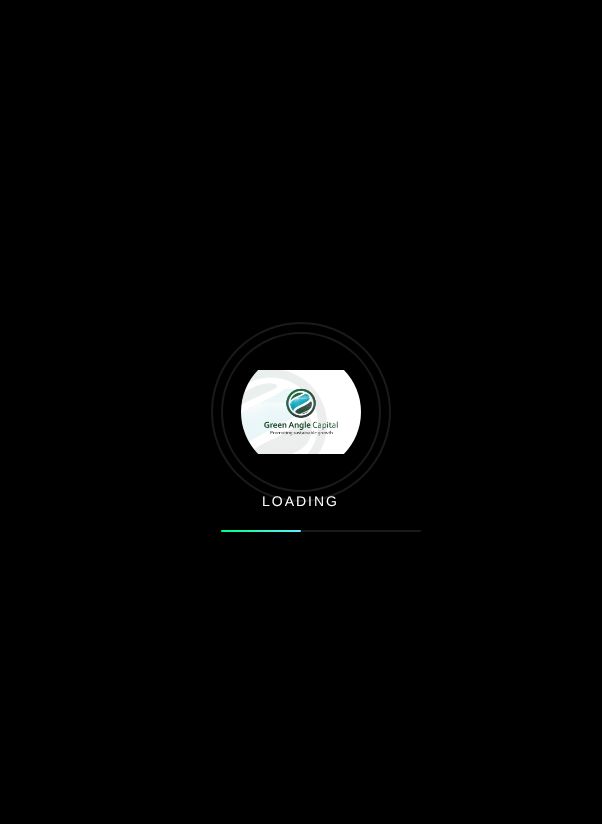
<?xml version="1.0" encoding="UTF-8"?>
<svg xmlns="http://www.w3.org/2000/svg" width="602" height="824">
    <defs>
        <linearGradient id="g1" gradientUnits="userSpaceOnUse" x1="221" y1="531" x2="301" y2="531"><stop offset="0" stop-color="#00FF87"/><stop offset="1" stop-color="#60EFFF"/></linearGradient>
    </defs>
    <rect width="100%" height="100%" fill="#000000"/>
    <circle cx="301" cy="412" r="89" fill="none" stroke="#1A1A1A" stroke-width="2"/>
    <circle cx="301" cy="412" r="79" fill="none" stroke="#1A1A1A" stroke-width="2"/>
    <image x="241" y="370" width="120" height="84" href="img_01.png"/>
    <text x="262" y="506" font-family="Liberation Sans" font-size="14" letter-spacing="2" fill="#FFFFFF">LOADING</text>
    <rect x="221" y="530" width="200" height="2" rx="1" fill="#1A1A1A"/>
    <rect x="221" y="530" width="80" height="2" rx="1" fill="url(#g1)"/>
</svg>
